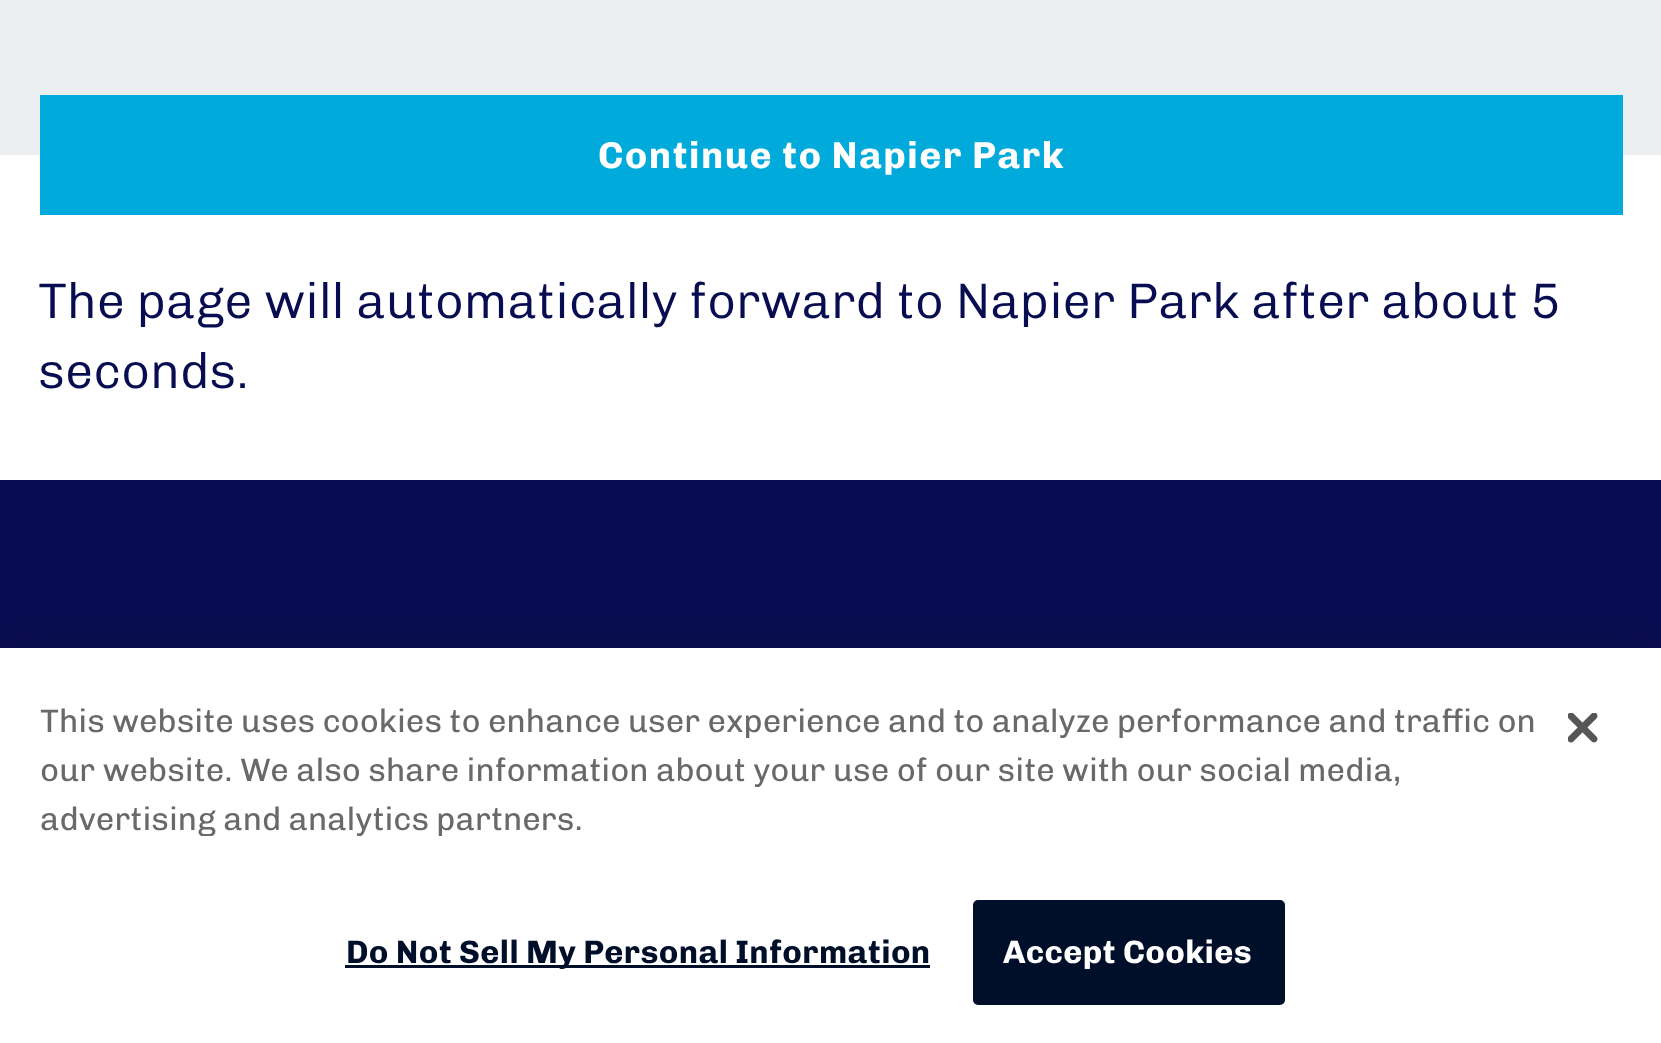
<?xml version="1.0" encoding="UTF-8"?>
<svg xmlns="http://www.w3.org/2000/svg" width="1661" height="1043">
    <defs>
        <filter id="blur1" x="-50%" y="-200%" width="200%" height="500%"><feGaussianBlur stdDeviation="22.5"/></filter>
    </defs>
    <rect width="100%" height="100%" fill="#FFFFFF"/>
    <rect x="0" y="0" width="1661" height="155" fill="#EBEFF1"/>
    <rect x="40" y="95" width="1583" height="120" fill="#00AADB"/>
    <text x="598" y="168" font-family="Chivo" font-size="37.5" font-weight="700" letter-spacing="1.35" fill="#FFFFFF">Continue to Napier Park</text>
    <text font-family="Chivo" font-size="50" font-weight="300" fill="#080D52">
        <tspan x="38" y="318">The page will automatically forward to Napier Park after about 5</tspan>
        <tspan x="38" y="388">seconds.</tspan>
    </text>
    <rect x="0" y="480" width="1661" height="168" fill="#080D52"/>
    <rect x="0" y="648" width="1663" height="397" fill="#000000" fill-opacity="0.2" filter="url(#blur1)"/>
    <rect x="0" y="648" width="1661" height="395" fill="#FFFFFF"/>
    <text font-family="Chivo" font-size="32.5" fill="#696969">
        <tspan x="40" y="732">This website uses cookies to enhance user experience and to analyze performance and traffic on</tspan>
        <tspan x="40" y="781">our website. We also share information about your use of our site with our social media,</tspan>
        <tspan x="40" y="830">advertising and analytics partners.</tspan>
    </text>
    <rect x="345" y="965" width="585" height="3" fill="#000F29"/>
    <text x="346" y="963" font-family="Chivo" font-size="32.5" font-weight="700" letter-spacing="0.35" fill="#000F29">Do Not Sell My Personal Information</text>
    <rect x="974.5" y="901.5" width="309" height="102" rx="3.5" fill="#000F29" stroke="#000F29" stroke-width="3"/>
    <text x="1003" y="963" font-family="Chivo" font-size="32.5" font-weight="700" letter-spacing="0.35" fill="#FFFFFF">Accept Cookies</text>
    <image x="1568" y="713" width="30" height="30" href="img_01.png"/>
</svg>
